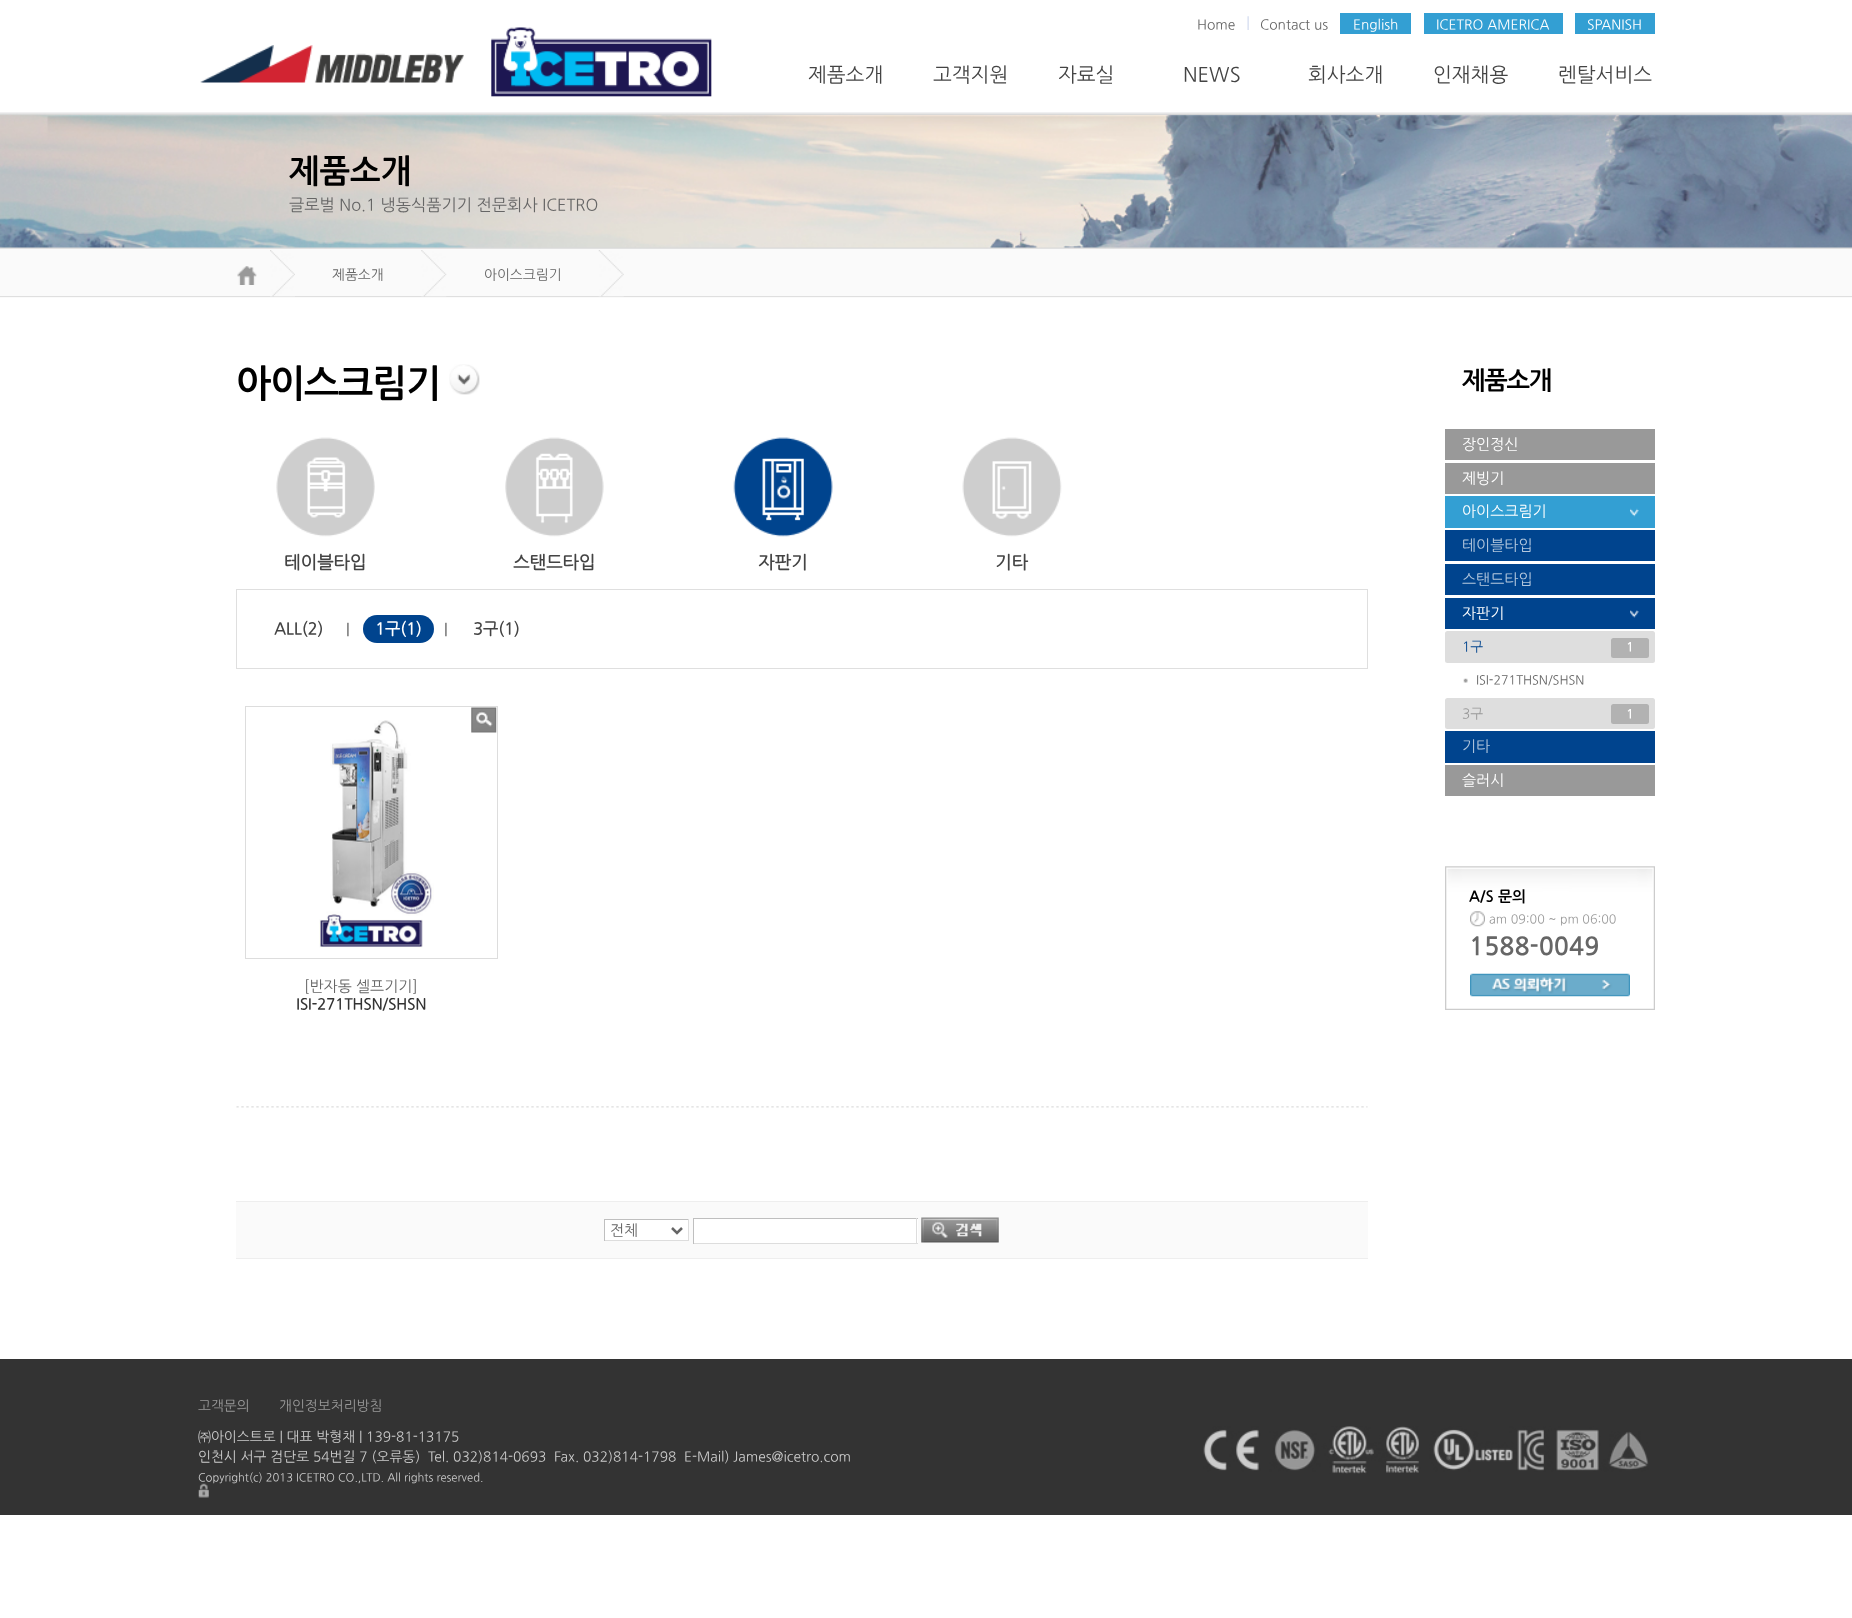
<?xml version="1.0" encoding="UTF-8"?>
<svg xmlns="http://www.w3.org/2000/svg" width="1852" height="1618">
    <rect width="100%" height="100%" fill="#FFFFFF"/>
    <image x="0" y="112" width="1852" height="2" href="img_01.png"/>
    <text x="1197" y="29" font-family="NanumGothic" font-size="13.75" fill="#666666">Home</text>
    <image x="1247" y="16" width="2" height="14" href="img_02.png"/>
    <text x="1260" y="29" font-family="NanumGothic" font-size="13.75" fill="#666666">Contact us</text>
    <rect x="1340" y="13" width="71" height="21" fill="#339FD3"/>
    <text x="1353" y="29" font-family="NanumGothic" font-size="13.75" fill="#FFFFFF">English</text>
    <rect x="1424" y="13" width="139" height="21" fill="#339FD3"/>
    <text x="1436" y="29" font-family="NanumGothic" font-size="13.75" fill="#FFFFFF">ICETRO AMERICA</text>
    <rect x="1575" y="13" width="80" height="21" fill="#339FD3"/>
    <text x="1587" y="29" font-family="NanumGothic" font-size="13.75" fill="#FFFFFF">SPANISH</text>
    <image x="200" y="45" width="264" height="38" href="img_03.png"/>
    <image x="463" y="27" width="249" height="70" href="img_04.png"/>
    <text x="808" y="81" font-family="NanumGothic" font-size="20" fill="#444444">제품소개</text>
    <text x="933" y="81" font-family="NanumGothic" font-size="20" fill="#444444">고객지원</text>
    <text x="1058" y="81" font-family="NanumGothic" font-size="20" fill="#444444">자료실</text>
    <text x="1183" y="81" font-family="NanumGothic" font-size="20" fill="#444444">NEWS</text>
    <text x="1308" y="81" font-family="NanumGothic" font-size="20" fill="#444444">회사소개</text>
    <text x="1433" y="81" font-family="NanumGothic" font-size="20" fill="#444444">인재채용</text>
    <text x="1558" y="81" font-family="NanumGothic" font-size="20" fill="#444444">렌탈서비스</text>
    <rect x="0" y="248" width="1852" height="50" fill="#FAFAFA"/>
    <image x="0" y="113" width="1852" height="136" href="img_05.png"/>
    <rect x="0" y="296" width="1852" height="1" fill="#DFDFDF"/>
    <text x="289" y="181" font-family="NanumGothic" font-size="32.5" font-weight="700" fill="#000000">제품소개</text>
    <text x="289" y="210" font-family="NanumGothic" font-size="16.25" fill="#666666">글로벌 No.1 냉동식품기기 전문회사 ICETRO</text>
    <image x="270" y="250" width="25" height="47" href="img_06.png"/>
    <image x="237" y="266" width="20" height="19" href="img_07.png"/>
    <image x="421" y="250" width="26" height="47" href="img_08.png"/>
    <text x="332" y="279" font-family="NanumGothic" font-size="13.75" fill="#666666">제품소개</text>
    <image x="598" y="250" width="26" height="47" href="img_09.png"/>
    <text x="484" y="279" font-family="NanumGothic" font-size="13.75" fill="#666666">아이스크림기</text>
    <text x="236" y="395" font-family="NanumGothic" font-size="37.5" font-weight="700" letter-spacing="-1.25" fill="#000000">아이스크림기</text>
    <image x="449" y="364" width="31" height="31" href="img_10.png"/>
    <image x="276" y="437" width="99" height="100" href="img_11.png"/>
    <text x="284" y="568" font-family="'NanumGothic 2'" font-size="17.5" font-weight="700" fill="#444444">테이블타입</text>
    <image x="505" y="437" width="99" height="100" href="img_12.png"/>
    <text x="513" y="568" font-family="'NanumGothic 2'" font-size="17.5" font-weight="700" fill="#444444">스탠드타입</text>
    <image x="733" y="437" width="100" height="100" href="img_13.png"/>
    <text x="758" y="568" font-family="'NanumGothic 2'" font-size="17.5" font-weight="700" fill="#444444">자판기</text>
    <image x="962" y="437" width="100" height="100" href="img_14.png"/>
    <text x="995" y="568" font-family="'NanumGothic 2'" font-size="17.5" font-weight="700" fill="#444444">기타</text>
    <rect x="236.5" y="589.5" width="1131" height="79" fill="none" stroke="#DFDFDF"/>
    <text x="274" y="634" font-family="'NanumGothic 2'" font-size="16.25" font-weight="700" fill="#444444">ALL(2)</text>
    <text x="346" y="634" font-family="NanumGothic" font-size="15" fill="#444444">|</text>
    <rect x="363" y="615" width="71" height="28" rx="14" fill="#00448E"/>
    <text x="375" y="634" font-family="'NanumGothic 2'" font-size="16.25" font-weight="700" fill="#FFFFFF">1구(1)</text>
    <text x="444" y="634" font-family="NanumGothic" font-size="15" fill="#444444">|</text>
    <text x="473" y="634" font-family="'NanumGothic 2'" font-size="16.25" font-weight="700" fill="#444444">3구(1)</text>
    <rect x="245.5" y="706.5" width="252" height="252" fill="none" stroke="#DDDDDD"/>
    <image x="319" y="720" width="115" height="228" href="img_15.png"/>
    <image x="471" y="707" width="26" height="26" href="img_16.png"/>
    <text x="304" y="991" font-family="NanumGothic" font-size="15" fill="#666666">[반자동 셀프기기]</text>
    <text x="296" y="1009" font-family="'NanumGothic 2'" font-size="15" font-weight="700" fill="#333333">ISI-271THSN/SHSN</text>
    <image x="236" y="1106" width="1132" height="2" href="img_17.png"/>
    <rect x="236" y="1202" width="1132" height="56" fill="#FAFAFA"/>
    <rect x="236" y="1201" width="1132" height="1" fill="#EEEEEE"/>
    <rect x="236" y="1258" width="1132" height="1" fill="#EEEEEE"/>
    <rect x="605" y="1220" width="83" height="20" fill="#FFFFFF"/>
    <rect x="604" y="1219" width="85" height="1" fill="#BFBFBF"/>
    <rect x="688" y="1219" width="1" height="22" fill="#DDDDDD"/>
    <rect x="604" y="1240" width="85" height="1" fill="#DDDDDD"/>
    <rect x="604" y="1219" width="1" height="22" fill="#BFBFBF"/>
    <path d="M 672 1228 L 677 1233 L 682 1228" fill="none" stroke="#666666" stroke-width="2.5"/>
    <text x="610" y="1235" font-family="NanumGothic" font-size="15" fill="#666666">전체</text>
    <rect x="694" y="1219" width="224" height="24" fill="#FFFFFF"/>
    <rect x="693" y="1218" width="225" height="1" fill="#BFBFBF"/>
    <rect x="916" y="1218" width="1" height="26" fill="#DDDDDD"/>
    <rect x="693" y="1243" width="225" height="1" fill="#DDDDDD"/>
    <rect x="693" y="1218" width="1" height="26" fill="#BFBFBF"/>
    <rect x="921" y="1218" width="78" height="25" fill="#FFFFFF"/>
    <image x="921" y="1217" width="78" height="26" href="img_18.png"/>
    <text x="1462" y="388" font-family="NanumGothic" font-size="25" font-weight="700" letter-spacing="-1.25" fill="#000000">제품소개</text>
    <rect x="1445" y="429" width="210" height="31" fill="#999999"/>
    <text x="1462" y="449" font-family="NanumGothic" font-size="15" fill="#FFFFFF">장인정신</text>
    <rect x="1445" y="463" width="210" height="31" fill="#999999"/>
    <text x="1462" y="483" font-family="NanumGothic" font-size="15" fill="#FFFFFF">제빙기</text>
    <rect x="1445" y="496" width="210" height="32" fill="#339FD3"/>
    <image x="1630" y="508" width="9" height="9" href="img_19.png"/>
    <text x="1462" y="516" font-family="NanumGothic" font-size="15" fill="#FFFFFF">아이스크림기</text>
    <rect x="1445" y="530" width="210" height="31" fill="#00448E"/>
    <text x="1462" y="550" font-family="NanumGothic" font-size="15" fill="#B3C7DD">테이블타입</text>
    <rect x="1445" y="564" width="210" height="31" fill="#00448E"/>
    <text x="1462" y="584" font-family="NanumGothic" font-size="15" fill="#B3C7DD">스탠드타입</text>
    <rect x="1445" y="598" width="210" height="31" fill="#00448E"/>
    <image x="1630" y="610" width="9" height="8" href="img_20.png"/>
    <text x="1462" y="618" font-family="NanumGothic" font-size="15" fill="#FFFFFF">자판기</text>
    <rect x="1445" y="631" width="210" height="32" rx="2.5" fill="#DEDEDE"/>
    <text x="1462" y="651" font-family="NanumGothic" font-size="13.75" fill="#00448E">1구</text>
    <rect x="1611" y="638" width="38" height="20" rx="2.5" fill="#B2B2B2"/>
    <text x="1626" y="651" font-family="'NanumGothic 2'" font-size="12.5" font-weight="700" fill="#FFFFFF">1</text>
    <image x="1463" y="678" width="5" height="5" href="img_21.png"/>
    <text x="1476" y="684" font-family="NanumGothic" font-size="12.5" fill="#666666">ISI-271THSN/SHSN</text>
    <rect x="1445" y="698" width="210" height="31" rx="2.5" fill="#DEDEDE"/>
    <text x="1462" y="718" font-family="NanumGothic" font-size="13.75" fill="#999999">3구</text>
    <rect x="1611" y="704" width="38" height="20" rx="2.5" fill="#B2B2B2"/>
    <text x="1626" y="718" font-family="'NanumGothic 2'" font-size="12.5" font-weight="700" fill="#FFFFFF">1</text>
    <rect x="1445" y="731" width="210" height="32" fill="#00448E"/>
    <text x="1462" y="751" font-family="NanumGothic" font-size="15" fill="#B3C7DD">기타</text>
    <rect x="1445" y="765" width="210" height="31" fill="#999999"/>
    <text x="1462" y="785" font-family="NanumGothic" font-size="15" fill="#FFFFFF">슬러시</text>
    <image x="1445" y="866" width="210" height="144" href="img_22.png"/>
    <text x="1469" y="901" font-family="NanumGothic" font-size="15" font-weight="700" fill="#000000">A/S 문의</text>
    <image x="1470" y="911" width="15" height="16" href="img_23.png"/>
    <text x="1489" y="923" font-family="NanumGothic" font-size="12.5" fill="#999999">am 09:00 ~ pm 06:00</text>
    <text x="1469" y="954" font-family="NanumGothic" font-size="25" font-weight="700" fill="#666666">1588-0049</text>
    <image x="1470" y="973" width="160" height="24" href="img_24.png"/>
    <rect x="0" y="1359" width="1852" height="156" fill="#333333"/>
    <text x="198" y="1410" font-family="NanumGothic" font-size="13.75" fill="#999999">고객문의</text>
    <text x="279" y="1410" font-family="NanumGothic" font-size="13.75" fill="#999999">개인정보처리방침</text>
    <text font-family="NanumGothic" font-size="13.75" fill="#CCCCCC" xml:space="preserve"><tspan x="198" y="1441">㈜아이스트로 | 대표 박형채 | 139-81-13175</tspan><tspan x="198" y="1461">인천시 서구 검단로 54번길 7 (오류동)  Tel. 032)814-0693  Fax. 032)814-1798  E-Mail) James@icetro.com</tspan></text>
    <text x="198" y="1481" font-family="NanumGothic" font-size="11.25" fill="#CCCCCC">Copyright(c) 2013 ICETRO CO.,LTD. All rights reserved.</text>
    <image x="198" y="1483" width="11" height="15" href="img_25.png"/>
    <image x="1203" y="1426" width="446" height="48" href="img_26.png"/>
</svg>
